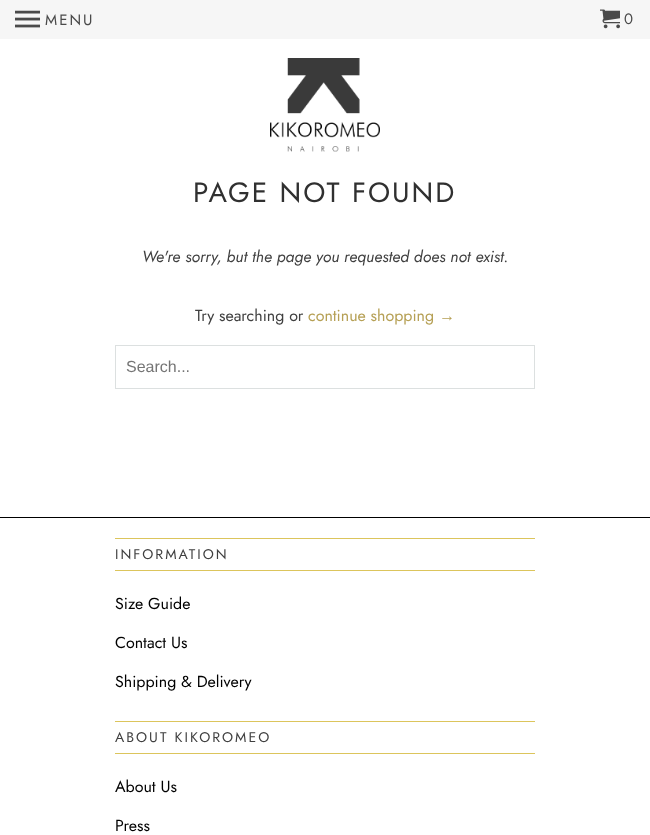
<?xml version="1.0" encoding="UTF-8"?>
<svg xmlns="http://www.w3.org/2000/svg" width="650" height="835">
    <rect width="100%" height="100%" fill="#FFFFFF"/>
    <rect x="0" y="0" width="650" height="39" fill="#F6F6F6"/>
    <image x="15" y="10" width="25" height="18" href="img_01.png"/>
    <text x="45" y="25" font-family="Jost" font-size="15" letter-spacing="2" fill="#4A4A4A">MENU</text>
    <image x="600" y="9" width="20" height="20" href="img_02.png"/>
    <text x="624" y="24" font-family="Jost" font-size="15" letter-spacing="2" fill="#4A4A4A">0</text>
    <image x="270" y="58" width="110" height="94" href="img_03.png"/>
    <text x="193" y="202" font-family="Jost" font-size="28" letter-spacing="2" fill="#303030">PAGE NOT FOUND</text>
    <text x="142" y="262" font-family="Jost" font-size="16" font-style="italic" fill="#404040">We're sorry, but the page you requested does not exist.</text>
    <text x="195" y="321" font-family="Jost" font-size="16" fill="#404040">Try searching or</text>
    <text x="308" y="321" font-family="Jost" font-size="16" fill="#B6A055">continue shopping</text>
    <text x="439" y="321" font-family="Liberation Sans" font-size="16" fill="#B6A055">→</text>
    <rect x="115.5" y="345.5" width="419" height="43" fill="none" stroke="#DCE0E0"/>
    <text x="126" y="372" font-family="Liberation Sans" font-size="16" fill="#757575">Search...</text>
    <rect x="0" y="517" width="650" height="1" fill="#000000"/>
    <rect x="115" y="538" width="420" height="1" fill="#DCC55C"/>
    <rect x="115" y="570" width="420" height="1" fill="#DCC55C"/>
    <text x="115" y="559" font-family="Jost" font-size="14" letter-spacing="2" fill="#404040">INFORMATION</text>
    <text x="115" y="609" font-family="Jost" font-size="16" fill="#000000">Size Guide</text>
    <text x="115" y="648" font-family="Jost" font-size="16" fill="#000000">Contact Us</text>
    <text x="115" y="687" font-family="Jost" font-size="16" fill="#000000">Shipping &amp; Delivery</text>
    <rect x="115" y="721" width="420" height="1" fill="#DCC55C"/>
    <rect x="115" y="753" width="420" height="1" fill="#DCC55C"/>
    <text x="115" y="742" font-family="Jost" font-size="14" letter-spacing="2" fill="#404040">ABOUT KIKOROMEO</text>
    <text x="115" y="792" font-family="Jost" font-size="16" fill="#000000">About Us</text>
    <text x="115" y="831" font-family="Jost" font-size="16" fill="#000000">Press</text>
</svg>
